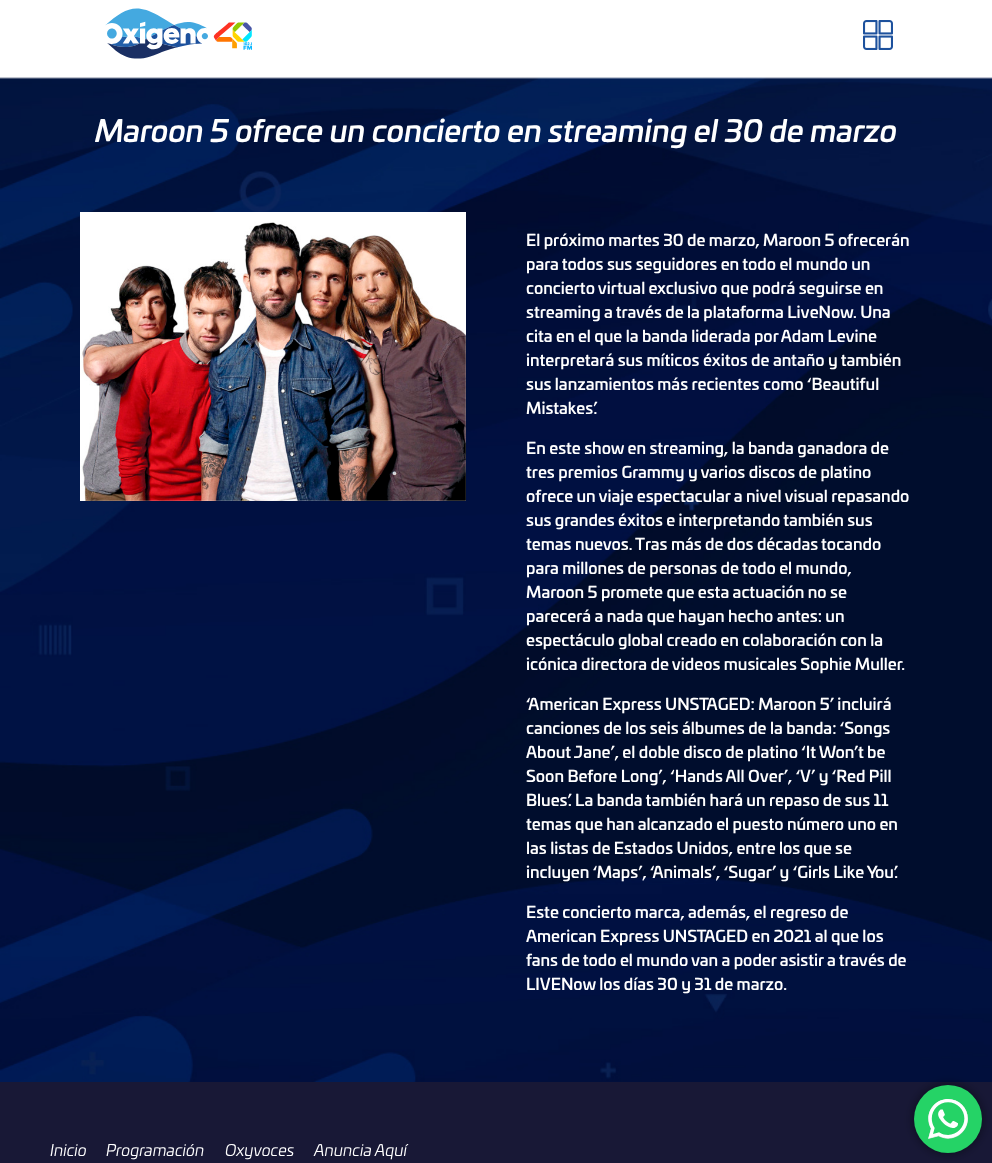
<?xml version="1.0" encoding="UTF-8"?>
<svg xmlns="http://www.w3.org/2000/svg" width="992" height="1163">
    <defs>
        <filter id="blur1" x="-50%" y="-200%" width="200%" height="500%"><feGaussianBlur stdDeviation="5.5"/></filter>
    </defs>
    <rect width="100%" height="100%" fill="#FFFFFF"/>
    <image x="105" y="8" width="147" height="51" href="img_01.png"/>
    <image x="863" y="20" width="30" height="30" href="img_02.png"/>
    <image x="0" y="77" width="992" height="1005" href="img_03.png"/>
    <text x="95" y="142" font-family="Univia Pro" font-size="30" font-weight="500" font-style="italic" fill="#FFFFFF">Maroon 5 ofrece un concierto en streaming el 30 de marzo</text>
    <image x="80" y="212" width="386" height="289" href="img_04.png"/>
    <text font-family="Univia Pro" font-size="16" font-weight="500" fill="#FFFFFF">
        <tspan x="526" y="246">El próximo martes 30 de marzo, Maroon 5 ofrecerán</tspan>
        <tspan x="526" y="270">para todos sus seguidores en todo el mundo un</tspan>
        <tspan x="526" y="294">concierto virtual exclusivo que podrá seguirse en</tspan>
        <tspan x="526" y="318">streaming a través de la plataforma LiveNow. Una</tspan>
        <tspan x="526" y="342">cita en el que la banda liderada por Adam Levine</tspan>
        <tspan x="526" y="366">interpretará sus míticos éxitos de antaño y también</tspan>
        <tspan x="526" y="390">sus lanzamientos más recientes como ‘Beautiful</tspan>
        <tspan x="526" y="414">Mistakes’.</tspan>
    </text>
    <text font-family="Univia Pro" font-size="16" font-weight="500" fill="#FFFFFF">
        <tspan x="526" y="454">En este show en streaming, la banda ganadora de</tspan>
        <tspan x="526" y="478">tres premios Grammy y varios discos de platino</tspan>
        <tspan x="526" y="502">ofrece un viaje espectacular a nivel visual repasando</tspan>
        <tspan x="526" y="526">sus grandes éxitos e interpretando también sus</tspan>
        <tspan x="526" y="550">temas nuevos. Tras más de dos décadas tocando</tspan>
        <tspan x="526" y="574">para millones de personas de todo el mundo,</tspan>
        <tspan x="526" y="598">Maroon 5 promete que esta actuación no se</tspan>
        <tspan x="526" y="622">parecerá a nada que hayan hecho antes: un</tspan>
        <tspan x="526" y="646">espectáculo global creado en colaboración con la</tspan>
        <tspan x="526" y="670">icónica directora de videos musicales Sophie Muller.</tspan>
    </text>
    <text font-family="Univia Pro" font-size="16" font-weight="500" fill="#FFFFFF">
        <tspan x="526" y="710">‘American Express UNSTAGED: Maroon 5’ incluirá</tspan>
        <tspan x="526" y="734">canciones de los seis álbumes de la banda: ‘Songs</tspan>
        <tspan x="526" y="758">About Jane’, el doble disco de platino ‘It Won’t be</tspan>
        <tspan x="526" y="782">Soon Before Long’, ‘Hands All Over’, ‘V’ y ‘Red Pill</tspan>
        <tspan x="526" y="806">Blues’. La banda también hará un repaso de sus 11</tspan>
        <tspan x="526" y="830">temas que han alcanzado el puesto número uno en</tspan>
        <tspan x="526" y="854">las listas de Estados Unidos, entre los que se</tspan>
        <tspan x="526" y="878">incluyen ‘Maps’, ‘Animals’, ‘Sugar’ y ‘Girls Like You’.</tspan>
    </text>
    <text font-family="Univia Pro" font-size="16" font-weight="500" fill="#FFFFFF">
        <tspan x="526" y="918">Este concierto marca, además, el regreso de</tspan>
        <tspan x="526" y="942">American Express UNSTAGED en 2021 al que los</tspan>
        <tspan x="526" y="966">fans de todo el mundo van a poder asistir a través de</tspan>
        <tspan x="526" y="990">LIVENow los días 30 y 31 de marzo.</tspan>
    </text>
    <rect x="0" y="1082" width="992" height="81" fill="#181836"/>
    <text x="50" y="1156" font-family="Univia Pro" font-size="16" font-style="italic" fill="#FFFFFF">Inicio</text>
    <text x="106" y="1156" font-family="Univia Pro" font-size="16" font-style="italic" fill="#FFFFFF">Programación</text>
    <text x="225" y="1156" font-family="Univia Pro" font-size="16" font-style="italic" fill="#FFFFFF">Oxyvoces</text>
    <text x="314" y="1156" font-family="Univia Pro" font-size="16" font-style="italic" fill="#FFFFFF">Anuncia Aquí</text>
    <rect x="914" y="1085" width="68" height="68" rx="34" fill="#000000" fill-opacity="0.5" filter="url(#blur1)"/>
    <circle cx="948" cy="1119" r="34" fill="#25D366"/>
    <image x="928" y="1099" width="40" height="40" href="img_05.png"/>
</svg>
